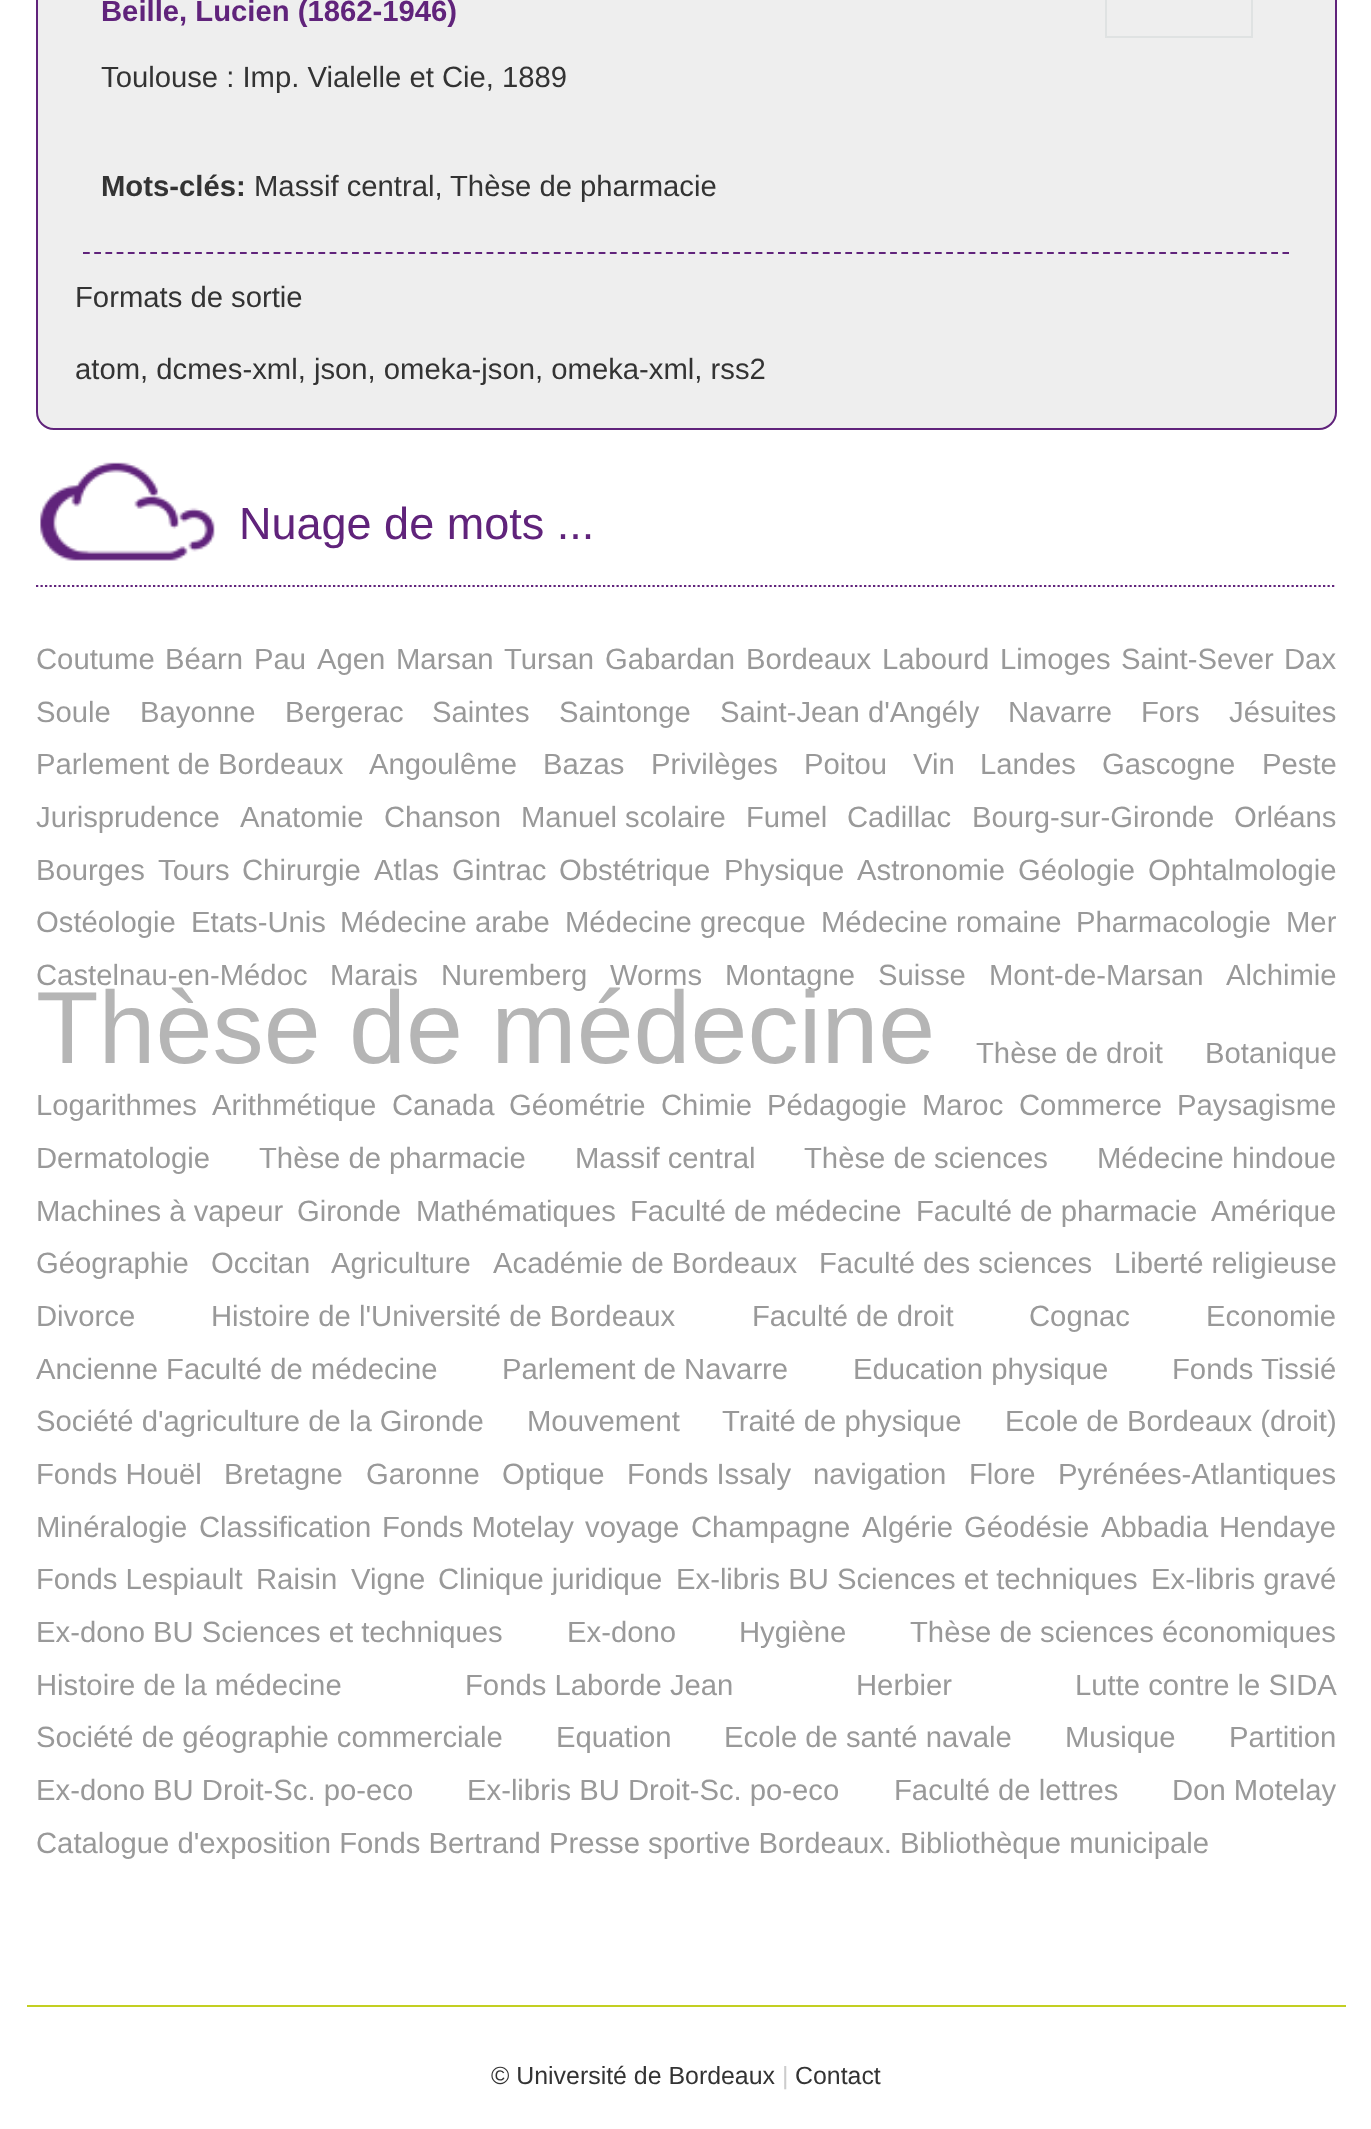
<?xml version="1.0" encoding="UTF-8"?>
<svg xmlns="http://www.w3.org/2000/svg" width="1371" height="2129">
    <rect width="100%" height="100%" fill="#FFFFFF"/>
    <rect x="37" y="-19" width="1299" height="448" rx="17" fill="#EEEEEE" stroke="#60237B" stroke-width="2"/>
    <path d="M 83 253 H 1289" fill="none" stroke="#60237B" stroke-width="2.2" stroke-dasharray="6.75 4.46"/>
    <text x="101" y="21" font-family="Liberation Sans" font-size="29.25" font-weight="700" fill="#60237B">Beille, Lucien (1862-1946)</text>
    <rect x="1106" y="-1" width="146" height="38" fill="none" stroke="#DFE2E2" stroke-width="2"/>
    <text x="101" y="87" font-family="Liberation Sans" font-size="29.25" fill="#333333">Toulouse : Imp. Vialelle et Cie, 1889</text>
    <text x="101" y="196" font-family="Liberation Sans" font-size="29.25" font-weight="700" fill="#333333">Mots-clés:</text>
    <text x="254" y="196" font-family="Liberation Sans" font-size="29.25" fill="#333333">Massif central,</text>
    <text x="450" y="196" font-family="Liberation Sans" font-size="29.25" fill="#333333">Thèse de pharmacie</text>
    <text x="75" y="307" font-family="Liberation Sans" font-size="29.25" fill="#333333">Formats de sortie</text>
    <text x="75" y="379" font-family="Liberation Sans" font-size="29.25" fill="#333333">atom, dcmes-xml, json, omeka-json, omeka-xml, rss2</text>
    <image x="40" y="462" width="175" height="99" href="img_01.png"/>
    <path d="M 36 586 H 1336.5" fill="none" stroke="#60237B" stroke-width="2.2" stroke-dasharray="2.25 2.25"/>
    <text x="239" y="539" font-family="Liberation Sans" font-size="45" fill="#60237B">Nuage de mots ...</text>
    <text x="36" y="669" font-family="Liberation Sans" font-size="29.25" fill="#999999">Coutume</text>
    <text x="165" y="669" font-family="Liberation Sans" font-size="29.25" fill="#999999">Béarn</text>
    <text x="254" y="669" font-family="Liberation Sans" font-size="29.25" fill="#999999">Pau</text>
    <text x="317" y="669" font-family="Liberation Sans" font-size="29.25" fill="#999999">Agen</text>
    <text x="396" y="669" font-family="Liberation Sans" font-size="29.25" fill="#999999">Marsan</text>
    <text x="504" y="669" font-family="Liberation Sans" font-size="29.25" fill="#999999">Tursan</text>
    <text x="605" y="669" font-family="Liberation Sans" font-size="29.25" fill="#999999">Gabardan</text>
    <text x="746" y="669" font-family="Liberation Sans" font-size="29.25" fill="#999999">Bordeaux</text>
    <text x="882" y="669" font-family="Liberation Sans" font-size="29.25" fill="#999999">Labourd</text>
    <text x="1000" y="669" font-family="Liberation Sans" font-size="29.25" fill="#999999">Limoges</text>
    <text x="1121" y="669" font-family="Liberation Sans" font-size="29.25" fill="#999999">Saint-Sever</text>
    <text x="1284" y="669" font-family="Liberation Sans" font-size="29.25" fill="#999999">Dax</text>
    <text x="36" y="722" font-family="Liberation Sans" font-size="29.25" fill="#999999">Soule</text>
    <text x="140" y="722" font-family="Liberation Sans" font-size="29.25" fill="#999999">Bayonne</text>
    <text x="285" y="722" font-family="Liberation Sans" font-size="29.25" fill="#999999">Bergerac</text>
    <text x="432" y="722" font-family="Liberation Sans" font-size="29.25" fill="#999999">Saintes</text>
    <text x="559" y="722" font-family="Liberation Sans" font-size="29.25" fill="#999999">Saintonge</text>
    <text x="720" y="722" font-family="Liberation Sans" font-size="29.25" fill="#999999">Saint-Jean d'Angély</text>
    <text x="1008" y="722" font-family="Liberation Sans" font-size="29.25" fill="#999999">Navarre</text>
    <text x="1141" y="722" font-family="Liberation Sans" font-size="29.25" fill="#999999">Fors</text>
    <text x="1229" y="722" font-family="Liberation Sans" font-size="29.25" fill="#999999">Jésuites</text>
    <text x="36" y="774" font-family="Liberation Sans" font-size="29.25" fill="#999999">Parlement de Bordeaux</text>
    <text x="369" y="774" font-family="Liberation Sans" font-size="29.25" fill="#999999">Angoulême</text>
    <text x="543" y="774" font-family="Liberation Sans" font-size="29.25" fill="#999999">Bazas</text>
    <text x="651" y="774" font-family="Liberation Sans" font-size="29.25" fill="#999999">Privilèges</text>
    <text x="804" y="774" font-family="Liberation Sans" font-size="29.25" fill="#999999">Poitou</text>
    <text x="913" y="774" font-family="Liberation Sans" font-size="29.25" fill="#999999">Vin</text>
    <text x="980" y="774" font-family="Liberation Sans" font-size="29.25" fill="#999999">Landes</text>
    <text x="1102" y="774" font-family="Liberation Sans" font-size="29.25" fill="#999999">Gascogne</text>
    <text x="1262" y="774" font-family="Liberation Sans" font-size="29.25" fill="#999999">Peste</text>
    <text x="36" y="827" font-family="Liberation Sans" font-size="29.25" fill="#999999">Jurisprudence</text>
    <text x="240" y="827" font-family="Liberation Sans" font-size="29.25" fill="#999999">Anatomie</text>
    <text x="384" y="827" font-family="Liberation Sans" font-size="29.25" fill="#999999">Chanson</text>
    <text x="521" y="827" font-family="Liberation Sans" font-size="29.25" fill="#999999">Manuel scolaire</text>
    <text x="746" y="827" font-family="Liberation Sans" font-size="29.25" fill="#999999">Fumel</text>
    <text x="847" y="827" font-family="Liberation Sans" font-size="29.25" fill="#999999">Cadillac</text>
    <text x="972" y="827" font-family="Liberation Sans" font-size="29.25" fill="#999999">Bourg-sur-Gironde</text>
    <text x="1234" y="827" font-family="Liberation Sans" font-size="29.25" fill="#999999">Orléans</text>
    <text x="36" y="880" font-family="Liberation Sans" font-size="29.25" fill="#999999">Bourges</text>
    <text x="158" y="880" font-family="Liberation Sans" font-size="29.25" fill="#999999">Tours</text>
    <text x="242" y="880" font-family="Liberation Sans" font-size="29.25" fill="#999999">Chirurgie</text>
    <text x="374" y="880" font-family="Liberation Sans" font-size="29.25" fill="#999999">Atlas</text>
    <text x="452" y="880" font-family="Liberation Sans" font-size="29.25" fill="#999999">Gintrac</text>
    <text x="559" y="880" font-family="Liberation Sans" font-size="29.25" fill="#999999">Obstétrique</text>
    <text x="724" y="880" font-family="Liberation Sans" font-size="29.25" fill="#999999">Physique</text>
    <text x="857" y="880" font-family="Liberation Sans" font-size="29.25" fill="#999999">Astronomie</text>
    <text x="1018" y="880" font-family="Liberation Sans" font-size="29.25" fill="#999999">Géologie</text>
    <text x="1148" y="880" font-family="Liberation Sans" font-size="29.25" fill="#999999">Ophtalmologie</text>
    <text x="36" y="932" font-family="Liberation Sans" font-size="29.25" fill="#999999">Ostéologie</text>
    <text x="191" y="932" font-family="Liberation Sans" font-size="29.25" fill="#999999">Etats-Unis</text>
    <text x="340" y="932" font-family="Liberation Sans" font-size="29.25" fill="#999999">Médecine arabe</text>
    <text x="565" y="932" font-family="Liberation Sans" font-size="29.25" fill="#999999">Médecine grecque</text>
    <text x="821" y="932" font-family="Liberation Sans" font-size="29.25" fill="#999999">Médecine romaine</text>
    <text x="1076" y="932" font-family="Liberation Sans" font-size="29.25" fill="#999999">Pharmacologie</text>
    <text x="1286" y="932" font-family="Liberation Sans" font-size="29.25" fill="#999999">Mer</text>
    <text x="36" y="985" font-family="Liberation Sans" font-size="29.25" fill="#999999">Castelnau-en-Médoc</text>
    <text x="330" y="985" font-family="Liberation Sans" font-size="29.25" fill="#999999">Marais</text>
    <text x="441" y="985" font-family="Liberation Sans" font-size="29.25" fill="#999999">Nuremberg</text>
    <text x="610" y="985" font-family="Liberation Sans" font-size="29.25" fill="#999999">Worms</text>
    <text x="725" y="985" font-family="Liberation Sans" font-size="29.25" fill="#999999">Montagne</text>
    <text x="878" y="985" font-family="Liberation Sans" font-size="29.25" fill="#999999">Suisse</text>
    <text x="989" y="985" font-family="Liberation Sans" font-size="29.25" fill="#999999">Mont-de-Marsan</text>
    <text x="1226" y="985" font-family="Liberation Sans" font-size="29.25" fill="#999999">Alchimie</text>
    <text x="36" y="1063" font-family="Liberation Sans" font-size="102.4" fill="#B5B5B5">Thèse de médecine</text>
    <text x="976" y="1063" font-family="Liberation Sans" font-size="29.25" fill="#999999">Thèse de droit</text>
    <text x="1205" y="1063" font-family="Liberation Sans" font-size="29.25" fill="#999999">Botanique</text>
    <text x="36" y="1115" font-family="Liberation Sans" font-size="29.25" fill="#999999">Logarithmes</text>
    <text x="212" y="1115" font-family="Liberation Sans" font-size="29.25" fill="#999999">Arithmétique</text>
    <text x="392" y="1115" font-family="Liberation Sans" font-size="29.25" fill="#999999">Canada</text>
    <text x="509" y="1115" font-family="Liberation Sans" font-size="29.25" fill="#999999">Géométrie</text>
    <text x="661" y="1115" font-family="Liberation Sans" font-size="29.25" fill="#999999">Chimie</text>
    <text x="767" y="1115" font-family="Liberation Sans" font-size="29.25" fill="#999999">Pédagogie</text>
    <text x="922" y="1115" font-family="Liberation Sans" font-size="29.25" fill="#999999">Maroc</text>
    <text x="1019" y="1115" font-family="Liberation Sans" font-size="29.25" fill="#999999">Commerce</text>
    <text x="1177" y="1115" font-family="Liberation Sans" font-size="29.25" fill="#999999">Paysagisme</text>
    <text x="36" y="1168" font-family="Liberation Sans" font-size="29.25" fill="#999999">Dermatologie</text>
    <text x="259" y="1168" font-family="Liberation Sans" font-size="29.25" fill="#999999">Thèse de pharmacie</text>
    <text x="575" y="1168" font-family="Liberation Sans" font-size="29.25" fill="#999999">Massif central</text>
    <text x="804" y="1168" font-family="Liberation Sans" font-size="29.25" fill="#999999">Thèse de sciences</text>
    <text x="1097" y="1168" font-family="Liberation Sans" font-size="29.25" fill="#999999">Médecine hindoue</text>
    <text x="36" y="1221" font-family="Liberation Sans" font-size="29.25" fill="#999999">Machines à vapeur</text>
    <text x="297" y="1221" font-family="Liberation Sans" font-size="29.25" fill="#999999">Gironde</text>
    <text x="416" y="1221" font-family="Liberation Sans" font-size="29.25" fill="#999999">Mathématiques</text>
    <text x="630" y="1221" font-family="Liberation Sans" font-size="29.25" fill="#999999">Faculté de médecine</text>
    <text x="916" y="1221" font-family="Liberation Sans" font-size="29.25" fill="#999999">Faculté de pharmacie</text>
    <text x="1211" y="1221" font-family="Liberation Sans" font-size="29.25" fill="#999999">Amérique</text>
    <text x="36" y="1273" font-family="Liberation Sans" font-size="29.25" fill="#999999">Géographie</text>
    <text x="211" y="1273" font-family="Liberation Sans" font-size="29.25" fill="#999999">Occitan</text>
    <text x="331" y="1273" font-family="Liberation Sans" font-size="29.25" fill="#999999">Agriculture</text>
    <text x="493" y="1273" font-family="Liberation Sans" font-size="29.25" fill="#999999">Académie de Bordeaux</text>
    <text x="819" y="1273" font-family="Liberation Sans" font-size="29.25" fill="#999999">Faculté des sciences</text>
    <text x="1114" y="1273" font-family="Liberation Sans" font-size="29.25" fill="#999999">Liberté religieuse</text>
    <text x="36" y="1326" font-family="Liberation Sans" font-size="29.25" fill="#999999">Divorce</text>
    <text x="211" y="1326" font-family="Liberation Sans" font-size="29.25" fill="#999999">Histoire de l'Université de Bordeaux</text>
    <text x="752" y="1326" font-family="Liberation Sans" font-size="29.25" fill="#999999">Faculté de droit</text>
    <text x="1029" y="1326" font-family="Liberation Sans" font-size="29.25" fill="#999999">Cognac</text>
    <text x="1206" y="1326" font-family="Liberation Sans" font-size="29.25" fill="#999999">Economie</text>
    <text x="36" y="1379" font-family="Liberation Sans" font-size="29.25" fill="#999999">Ancienne Faculté de médecine</text>
    <text x="502" y="1379" font-family="Liberation Sans" font-size="29.25" fill="#999999">Parlement de Navarre</text>
    <text x="853" y="1379" font-family="Liberation Sans" font-size="29.25" fill="#999999">Education physique</text>
    <text x="1172" y="1379" font-family="Liberation Sans" font-size="29.25" fill="#999999">Fonds Tissié</text>
    <text x="36" y="1431" font-family="Liberation Sans" font-size="29.25" fill="#999999">Société d'agriculture de la Gironde</text>
    <text x="527" y="1431" font-family="Liberation Sans" font-size="29.25" fill="#999999">Mouvement</text>
    <text x="722" y="1431" font-family="Liberation Sans" font-size="29.25" fill="#999999">Traité de physique</text>
    <text x="1005" y="1431" font-family="Liberation Sans" font-size="29.25" fill="#999999">Ecole de Bordeaux (droit)</text>
    <text x="36" y="1484" font-family="Liberation Sans" font-size="29.25" fill="#999999">Fonds Houël</text>
    <text x="224" y="1484" font-family="Liberation Sans" font-size="29.25" fill="#999999">Bretagne</text>
    <text x="366" y="1484" font-family="Liberation Sans" font-size="29.25" fill="#999999">Garonne</text>
    <text x="502" y="1484" font-family="Liberation Sans" font-size="29.25" fill="#999999">Optique</text>
    <text x="627" y="1484" font-family="Liberation Sans" font-size="29.25" fill="#999999">Fonds Issaly</text>
    <text x="813" y="1484" font-family="Liberation Sans" font-size="29.25" fill="#999999">navigation</text>
    <text x="969" y="1484" font-family="Liberation Sans" font-size="29.25" fill="#999999">Flore</text>
    <text x="1058" y="1484" font-family="Liberation Sans" font-size="29.25" fill="#999999">Pyrénées-Atlantiques</text>
    <text x="36" y="1537" font-family="Liberation Sans" font-size="29.25" fill="#999999">Minéralogie</text>
    <text x="199" y="1537" font-family="Liberation Sans" font-size="29.25" fill="#999999">Classification</text>
    <text x="382" y="1537" font-family="Liberation Sans" font-size="29.25" fill="#999999">Fonds Motelay</text>
    <text x="585" y="1537" font-family="Liberation Sans" font-size="29.25" fill="#999999">voyage</text>
    <text x="691" y="1537" font-family="Liberation Sans" font-size="29.25" fill="#999999">Champagne</text>
    <text x="862" y="1537" font-family="Liberation Sans" font-size="29.25" fill="#999999">Algérie</text>
    <text x="964" y="1537" font-family="Liberation Sans" font-size="29.25" fill="#999999">Géodésie</text>
    <text x="1101" y="1537" font-family="Liberation Sans" font-size="29.25" fill="#999999">Abbadia</text>
    <text x="1219" y="1537" font-family="Liberation Sans" font-size="29.25" fill="#999999">Hendaye</text>
    <text x="36" y="1589" font-family="Liberation Sans" font-size="29.25" fill="#999999">Fonds Lespiault</text>
    <text x="256" y="1589" font-family="Liberation Sans" font-size="29.25" fill="#999999">Raisin</text>
    <text x="351" y="1589" font-family="Liberation Sans" font-size="29.25" fill="#999999">Vigne</text>
    <text x="438" y="1589" font-family="Liberation Sans" font-size="29.25" fill="#999999">Clinique juridique</text>
    <text x="676" y="1589" font-family="Liberation Sans" font-size="29.25" fill="#999999">Ex-libris BU Sciences et techniques</text>
    <text x="1151" y="1589" font-family="Liberation Sans" font-size="29.25" fill="#999999">Ex-libris gravé</text>
    <text x="36" y="1642" font-family="Liberation Sans" font-size="29.25" fill="#999999">Ex-dono BU Sciences et techniques</text>
    <text x="567" y="1642" font-family="Liberation Sans" font-size="29.25" fill="#999999">Ex-dono</text>
    <text x="739" y="1642" font-family="Liberation Sans" font-size="29.25" fill="#999999">Hygiène</text>
    <text x="910" y="1642" font-family="Liberation Sans" font-size="29.25" fill="#999999">Thèse de sciences économiques</text>
    <text x="36" y="1695" font-family="Liberation Sans" font-size="29.25" fill="#999999">Histoire de la médecine</text>
    <text x="465" y="1695" font-family="Liberation Sans" font-size="29.25" fill="#999999">Fonds Laborde Jean</text>
    <text x="856" y="1695" font-family="Liberation Sans" font-size="29.25" fill="#999999">Herbier</text>
    <text x="1075" y="1695" font-family="Liberation Sans" font-size="29.25" fill="#999999">Lutte contre le SIDA</text>
    <text x="36" y="1747" font-family="Liberation Sans" font-size="29.25" fill="#999999">Société de géographie commerciale</text>
    <text x="556" y="1747" font-family="Liberation Sans" font-size="29.25" fill="#999999">Equation</text>
    <text x="724" y="1747" font-family="Liberation Sans" font-size="29.25" fill="#999999">Ecole de santé navale</text>
    <text x="1065" y="1747" font-family="Liberation Sans" font-size="29.25" fill="#999999">Musique</text>
    <text x="1229" y="1747" font-family="Liberation Sans" font-size="29.25" fill="#999999">Partition</text>
    <text x="36" y="1800" font-family="Liberation Sans" font-size="29.25" fill="#999999">Ex-dono BU Droit-Sc. po-eco</text>
    <text x="467" y="1800" font-family="Liberation Sans" font-size="29.25" fill="#999999">Ex-libris BU Droit-Sc. po-eco</text>
    <text x="894" y="1800" font-family="Liberation Sans" font-size="29.25" fill="#999999">Faculté de lettres</text>
    <text x="1172" y="1800" font-family="Liberation Sans" font-size="29.25" fill="#999999">Don Motelay</text>
    <text x="36" y="1853" font-family="Liberation Sans" font-size="29.25" fill="#999999">Catalogue d'exposition Fonds Bertrand Presse sportive Bordeaux. Bibliothèque municipale</text>
    <rect x="27" y="2005" width="1319" height="2" fill="#C3CF22"/>
    <text x="491" y="2084" font-family="Liberation Sans" font-size="24.9" fill="#333333">© Université de Bordeaux</text>
    <text x="782" y="2084" font-family="Liberation Sans" font-size="24.9" fill="#CCCCCC">|</text>
    <text x="795" y="2084" font-family="Liberation Sans" font-size="24.9" fill="#333333">Contact</text>
</svg>
